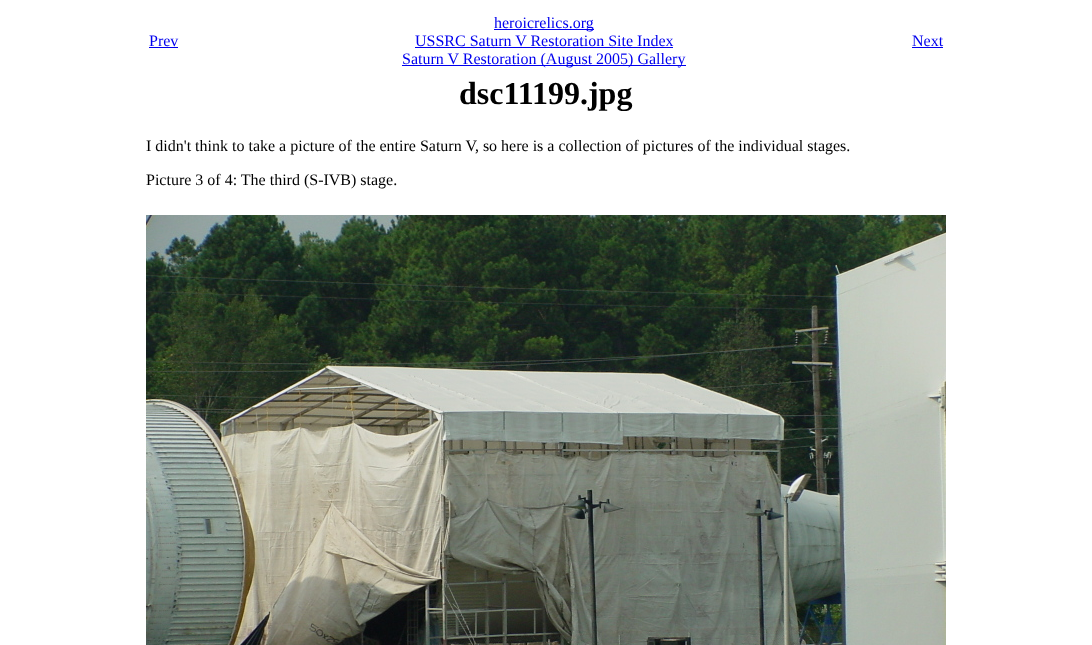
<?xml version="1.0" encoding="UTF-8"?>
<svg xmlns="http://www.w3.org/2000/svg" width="1092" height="645">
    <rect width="100%" height="100%" fill="#FFFFFF"/>
    <text x="149" y="46" font-family="Liberation Serif" font-size="16" fill="#0000EE">Prev</text>
    <rect x="149" y="47" width="29" height="1" fill="#0000EE"/>
    <rect x="494" y="29" width="100" height="1" fill="#0000EE"/>
    <text x="494" y="28" font-family="Liberation Serif" font-size="16" fill="#0000EE">heroicrelics.org</text>
    <text x="415" y="46" font-family="Liberation Serif" font-size="16" fill="#0000EE">USSRC Saturn V Restoration Site Index</text>
    <rect x="415" y="47" width="258" height="1" fill="#0000EE"/>
    <rect x="402" y="65" width="284" height="1" fill="#0000EE"/>
    <text x="402" y="64" font-family="Liberation Serif" font-size="16" fill="#0000EE">Saturn V Restoration (August 2005) Gallery</text>
    <text x="912" y="46" font-family="Liberation Serif" font-size="16" fill="#0000EE">Next</text>
    <rect x="912" y="47" width="31" height="1" fill="#0000EE"/>
    <text x="459" y="104" font-family="Liberation Serif" font-size="32" font-weight="700" fill="#000000">dsc11199.jpg</text>
    <text x="146" y="151" font-family="Liberation Serif" font-size="16" fill="#000000">I didn't think to take a picture of the entire Saturn V, so here is a collection of pictures of the individual stages.</text>
    <text x="146" y="185" font-family="Liberation Serif" font-size="16" fill="#000000">Picture 3 of 4: The third (S-IVB) stage.</text>
    <image x="146" y="215" width="800" height="430" href="img_01.png"/>
</svg>
